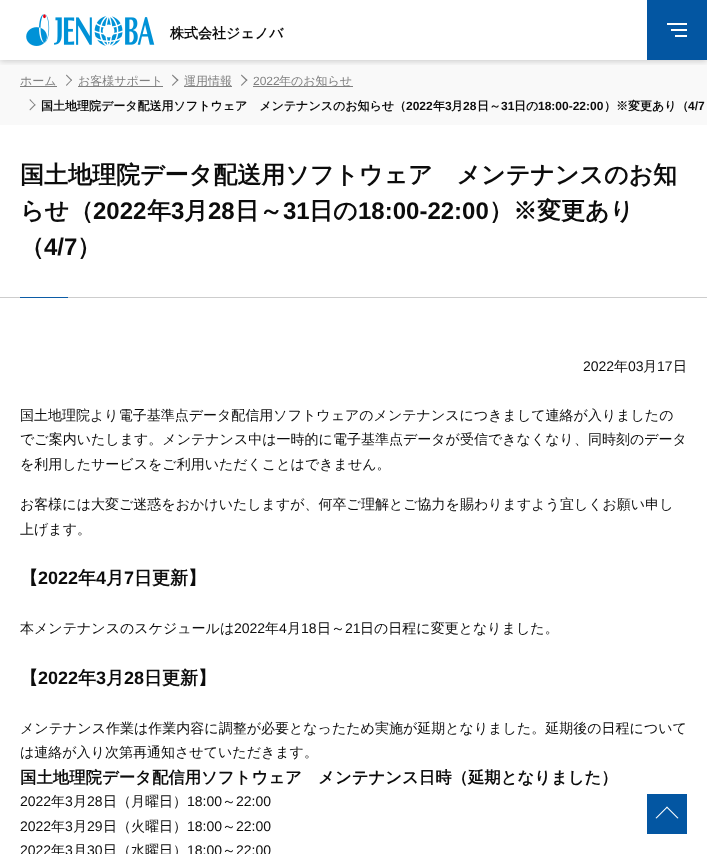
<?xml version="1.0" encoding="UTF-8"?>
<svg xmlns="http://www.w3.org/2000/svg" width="707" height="854">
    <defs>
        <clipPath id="clip1"><rect x="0" y="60" width="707" height="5"/></clipPath>
        <filter id="blur1" x="-50%" y="-200%" width="200%" height="500%"><feGaussianBlur stdDeviation="3"/></filter>
    </defs>
    <rect width="100%" height="100%" fill="#FFFFFF"/>
    <rect x="0" y="60" width="707" height="65" fill="#F9F9F9"/>
    <g clip-path="url(#clip1)">
        <rect x="0" y="1" width="707" height="60" fill="#000000" fill-opacity="0.2" filter="url(#blur1)"/>
    </g>
    <image x="26" y="14" width="129" height="32" href="img_01.png"/>
    <text x="170" y="38" font-family="WenQuanYi Zen Hei" font-size="14" font-weight="700" fill="#0C0C0C">株式会社ジェノバ</text>
    <rect x="647" y="0" width="60" height="60" fill="#0356A2"/>
    <rect x="667" y="23" width="20" height="2" fill="#FFFFFF"/>
    <rect x="671" y="29" width="16" height="2" fill="#FFFFFF"/>
    <rect x="675" y="35" width="12" height="2" fill="#FFFFFF"/>
    <rect x="20" y="86" width="37" height="1" fill="#7F7F7F"/>
    <text x="20" y="85" font-family="WenQuanYi Zen Hei" font-size="12" font-weight="500" fill="#7F7F7F">ホーム</text>
    <path d="M 66.5 74.5 L 72 80 L 71.5 81 L 66 75.5 Z" fill="#7F7F7F"/>
    <path d="M 71.5 79.5 L 72 80 L 66.5 86 L 66 85 Z" fill="#7F7F7F"/>
    <rect x="78" y="86" width="85" height="1" fill="#7F7F7F"/>
    <text x="78" y="85" font-family="WenQuanYi Zen Hei" font-size="12" font-weight="500" fill="#7F7F7F">お客様サポート</text>
    <path d="M 172.5 74.5 L 178.5 80 L 177.5 81 L 172 75.5 Z" fill="#7F7F7F"/>
    <path d="M 177.5 79.5 L 178.5 80 L 172.5 86 L 172 85 Z" fill="#7F7F7F"/>
    <rect x="184" y="86" width="48" height="1" fill="#7F7F7F"/>
    <text x="184" y="85" font-family="WenQuanYi Zen Hei" font-size="12" font-weight="500" fill="#7F7F7F">運用情報</text>
    <path d="M 241.5 74.5 L 247.5 80 L 246.5 81 L 241 75.5 Z" fill="#7F7F7F"/>
    <path d="M 246.5 79.5 L 247.5 80 L 241.5 86 L 241 85 Z" fill="#7F7F7F"/>
    <text x="253" y="85" font-family="Liberation Sans" font-size="12" fill="#7F7F7F">2022</text>
    <rect x="253" y="86" width="100" height="1" fill="#7F7F7F"/>
    <text x="279" y="85" font-family="WenQuanYi Zen Hei" font-size="12" font-weight="500" fill="#7F7F7F">年のお知らせ</text>
    <path d="M 30 99 L 35.5 105 L 35 105.5 L 29.5 100 Z" fill="#7F7F7F"/>
    <path d="M 35 104 L 35.5 105 L 30 110.5 L 29.5 109.5 Z" fill="#7F7F7F"/>
    <text x="41" y="110" font-family="WenQuanYi Zen Hei" font-size="12" font-weight="700" fill="#0C0C0C">国土地理院データ配送用ソフトウェア　メンテナンスのお知らせ（</text>
    <text x="406" y="110" font-family="Liberation Sans" font-size="12" font-weight="700" fill="#0C0C0C">2022</text>
    <text x="433" y="110" font-family="WenQuanYi Zen Hei" font-size="12" font-weight="700" fill="#0C0C0C">年</text>
    <text x="445" y="110" font-family="Liberation Sans" font-size="12" font-weight="700" fill="#0C0C0C">3</text>
    <text x="451" y="110" font-family="WenQuanYi Zen Hei" font-size="12" font-weight="700" fill="#0C0C0C">月</text>
    <text x="463" y="110" font-family="Liberation Sans" font-size="12" font-weight="700" fill="#0C0C0C">28</text>
    <text x="477" y="110" font-family="WenQuanYi Zen Hei" font-size="12" font-weight="700" fill="#0C0C0C">日～</text>
    <text x="501" y="110" font-family="Liberation Sans" font-size="12" font-weight="700" fill="#0C0C0C">31</text>
    <text x="514" y="110" font-family="WenQuanYi Zen Hei" font-size="12" font-weight="700" fill="#0C0C0C">日の</text>
    <text x="538" y="110" font-family="Liberation Sans" font-size="12" font-weight="700" fill="#0C0C0C">18:00-22:00</text>
    <text x="604" y="110" font-family="WenQuanYi Zen Hei" font-size="12" font-weight="700" fill="#0C0C0C">）※変更あり（</text>
    <text x="688" y="110" font-family="Liberation Sans" font-size="12" font-weight="700" fill="#0C0C0C">4/7</text>
    <rect x="0" y="297" width="707" height="1" fill="#CDCDCD"/>
    <text font-family="WenQuanYi Zen Hei" font-size="24" font-weight="700" fill="#0C0C0C">
        <tspan x="20" y="183">国土地理院データ配送用ソフトウェア　メンテナンスのお知</tspan>
        <tspan x="20" y="219">らせ（</tspan>
    </text>
    <text x="93" y="219" font-family="Liberation Sans" font-size="24" font-weight="700" fill="#0C0C0C">2022</text>
    <text x="147" y="219" font-family="WenQuanYi Zen Hei" font-size="24" font-weight="700" fill="#0C0C0C">年</text>
    <text x="171" y="219" font-family="Liberation Sans" font-size="24" font-weight="700" fill="#0C0C0C">3</text>
    <text x="184" y="219" font-family="WenQuanYi Zen Hei" font-size="24" font-weight="700" fill="#0C0C0C">月</text>
    <text x="208" y="219" font-family="Liberation Sans" font-size="24" font-weight="700" fill="#0C0C0C">28</text>
    <text x="235" y="219" font-family="WenQuanYi Zen Hei" font-size="24" font-weight="700" fill="#0C0C0C">日～</text>
    <text x="283" y="219" font-family="Liberation Sans" font-size="24" font-weight="700" fill="#0C0C0C">31</text>
    <text x="309" y="219" font-family="WenQuanYi Zen Hei" font-size="24" font-weight="700" fill="#0C0C0C">日の</text>
    <text x="358" y="219" font-family="Liberation Sans" font-size="24" font-weight="700" fill="#0C0C0C">18:00-22:00</text>
    <text x="489" y="219" font-family="WenQuanYi Zen Hei" font-size="24" font-weight="700" fill="#0C0C0C">）※変更あり</text>
    <text x="20" y="255" font-family="WenQuanYi Zen Hei" font-size="24" font-weight="700" fill="#0C0C0C">（</text>
    <text x="44" y="255" font-family="Liberation Sans" font-size="24" font-weight="700" fill="#0C0C0C">4/7</text>
    <text x="77" y="255" font-family="WenQuanYi Zen Hei" font-size="24" font-weight="700" fill="#0C0C0C">）</text>
    <rect x="20" y="297" width="48" height="1" fill="#0C5CA6"/>
    <text x="583" y="371" font-family="Liberation Sans" font-size="14" fill="#0C0C0C">2022</text>
    <text x="614" y="371" font-family="WenQuanYi Zen Hei" font-size="14" font-weight="500" fill="#0C0C0C">年</text>
    <text x="628" y="371" font-family="Liberation Sans" font-size="14" fill="#0C0C0C">03</text>
    <text x="643" y="371" font-family="WenQuanYi Zen Hei" font-size="14" font-weight="500" fill="#0C0C0C">月</text>
    <text x="657" y="371" font-family="Liberation Sans" font-size="14" fill="#0C0C0C">17</text>
    <text x="673" y="371" font-family="WenQuanYi Zen Hei" font-size="14" font-weight="500" fill="#0C0C0C">日</text>
    <text font-family="WenQuanYi Zen Hei" font-size="14" font-weight="500" fill="#0C0C0C">
        <tspan x="20" y="420">国土地理院より電子基準点データ配信用ソフトウェアのメンテナンスにつきまして連絡が入りましたの</tspan>
        <tspan x="20" y="444">でご案内いたします。メンテナンス中は一時的に電子基準点データが受信できなくなり、同時刻のデータ</tspan>
        <tspan x="20" y="469">を利用したサービスをご利用いただくことはできません。</tspan>
    </text>
    <text font-family="WenQuanYi Zen Hei" font-size="14" font-weight="500" fill="#0C0C0C">
        <tspan x="20" y="509">お客様には大変ご迷惑をおかけいたしますが、何卒ご理解とご協力を賜わりますよう宜しくお願い申し</tspan>
        <tspan x="20" y="534">上げます。</tspan>
    </text>
    <text x="20" y="584" font-family="WenQuanYi Zen Hei" font-size="18" font-weight="700" fill="#0C0C0C">【</text>
    <text x="38" y="584" font-family="Liberation Sans" font-size="18" font-weight="700" fill="#0C0C0C">2022</text>
    <text x="78" y="584" font-family="WenQuanYi Zen Hei" font-size="18" font-weight="700" fill="#0C0C0C">年</text>
    <text x="96" y="584" font-family="Liberation Sans" font-size="18" font-weight="700" fill="#0C0C0C">4</text>
    <text x="106" y="584" font-family="WenQuanYi Zen Hei" font-size="18" font-weight="700" fill="#0C0C0C">月</text>
    <text x="124" y="584" font-family="Liberation Sans" font-size="18" font-weight="700" fill="#0C0C0C">7</text>
    <text x="134" y="584" font-family="WenQuanYi Zen Hei" font-size="18" font-weight="700" fill="#0C0C0C">日更新】</text>
    <text x="20" y="633" font-family="WenQuanYi Zen Hei" font-size="14" font-weight="500" fill="#0C0C0C">本メンテナンスのスケジュールは</text>
    <text x="234" y="633" font-family="Liberation Sans" font-size="14" fill="#0C0C0C">2022</text>
    <text x="265" y="633" font-family="WenQuanYi Zen Hei" font-size="14" font-weight="500" fill="#0C0C0C">年</text>
    <text x="279" y="633" font-family="Liberation Sans" font-size="14" fill="#0C0C0C">4</text>
    <text x="287" y="633" font-family="WenQuanYi Zen Hei" font-size="14" font-weight="500" fill="#0C0C0C">月</text>
    <text x="301" y="633" font-family="Liberation Sans" font-size="14" fill="#0C0C0C">18</text>
    <text x="317" y="633" font-family="WenQuanYi Zen Hei" font-size="14" font-weight="500" fill="#0C0C0C">日～</text>
    <text x="345" y="633" font-family="Liberation Sans" font-size="14" fill="#0C0C0C">21</text>
    <text x="360" y="633" font-family="WenQuanYi Zen Hei" font-size="14" font-weight="500" fill="#0C0C0C">日の日程に変更となりました。</text>
    <text x="20" y="684" font-family="WenQuanYi Zen Hei" font-size="18" font-weight="700" fill="#0C0C0C">【</text>
    <text x="38" y="684" font-family="Liberation Sans" font-size="18" font-weight="700" fill="#0C0C0C">2022</text>
    <text x="78" y="684" font-family="WenQuanYi Zen Hei" font-size="18" font-weight="700" fill="#0C0C0C">年</text>
    <text x="96" y="684" font-family="Liberation Sans" font-size="18" font-weight="700" fill="#0C0C0C">3</text>
    <text x="106" y="684" font-family="WenQuanYi Zen Hei" font-size="18" font-weight="700" fill="#0C0C0C">月</text>
    <text x="124" y="684" font-family="Liberation Sans" font-size="18" font-weight="700" fill="#0C0C0C">28</text>
    <text x="144" y="684" font-family="WenQuanYi Zen Hei" font-size="18" font-weight="700" fill="#0C0C0C">日更新】</text>
    <text font-family="WenQuanYi Zen Hei" font-size="14" font-weight="500" fill="#0C0C0C">
        <tspan x="20" y="733">メンテナンス作業は作業内容に調整が必要となったため実施が延期となりました。延期後の日程について</tspan>
        <tspan x="20" y="757">は連絡が入り次第再通知させていただきます。</tspan>
    </text>
    <text x="20" y="783" font-family="WenQuanYi Zen Hei" font-size="16.4" font-weight="700" fill="#0C0C0C">国土地理院データ配信用ソフトウェア　メンテナンス日時（延期となりました）</text>
    <text x="20" y="806" font-family="Liberation Sans" font-size="14" fill="#0C0C0C">2022</text>
    <text x="51" y="806" font-family="WenQuanYi Zen Hei" font-size="14" font-weight="500" fill="#0C0C0C">年</text>
    <text x="65" y="806" font-family="Liberation Sans" font-size="14" fill="#0C0C0C">3</text>
    <text x="73" y="806" font-family="WenQuanYi Zen Hei" font-size="14" font-weight="500" fill="#0C0C0C">月</text>
    <text x="87" y="806" font-family="Liberation Sans" font-size="14" fill="#0C0C0C">28</text>
    <text x="103" y="806" font-family="WenQuanYi Zen Hei" font-size="14" font-weight="500" fill="#0C0C0C">日（月曜日）</text>
    <text x="187" y="806" font-family="Liberation Sans" font-size="14" fill="#0C0C0C">18:00</text>
    <text x="222" y="806" font-family="WenQuanYi Zen Hei" font-size="14" font-weight="500" fill="#0C0C0C">～</text>
    <text x="236" y="806" font-family="Liberation Sans" font-size="14" fill="#0C0C0C">22:00</text>
    <text x="20" y="831" font-family="Liberation Sans" font-size="14" fill="#0C0C0C">2022</text>
    <text x="51" y="831" font-family="WenQuanYi Zen Hei" font-size="14" font-weight="500" fill="#0C0C0C">年</text>
    <text x="65" y="831" font-family="Liberation Sans" font-size="14" fill="#0C0C0C">3</text>
    <text x="73" y="831" font-family="WenQuanYi Zen Hei" font-size="14" font-weight="500" fill="#0C0C0C">月</text>
    <text x="87" y="831" font-family="Liberation Sans" font-size="14" fill="#0C0C0C">29</text>
    <text x="103" y="831" font-family="WenQuanYi Zen Hei" font-size="14" font-weight="500" fill="#0C0C0C">日（火曜日）</text>
    <text x="187" y="831" font-family="Liberation Sans" font-size="14" fill="#0C0C0C">18:00</text>
    <text x="222" y="831" font-family="WenQuanYi Zen Hei" font-size="14" font-weight="500" fill="#0C0C0C">～</text>
    <text x="236" y="831" font-family="Liberation Sans" font-size="14" fill="#0C0C0C">22:00</text>
    <text x="20" y="855" font-family="Liberation Sans" font-size="14" fill="#0C0C0C">2022</text>
    <text x="51" y="855" font-family="WenQuanYi Zen Hei" font-size="14" font-weight="500" fill="#0C0C0C">年</text>
    <text x="65" y="855" font-family="Liberation Sans" font-size="14" fill="#0C0C0C">3</text>
    <text x="73" y="855" font-family="WenQuanYi Zen Hei" font-size="14" font-weight="500" fill="#0C0C0C">月</text>
    <text x="87" y="855" font-family="Liberation Sans" font-size="14" fill="#0C0C0C">30</text>
    <text x="103" y="855" font-family="WenQuanYi Zen Hei" font-size="14" font-weight="500" fill="#0C0C0C">日（水曜日）</text>
    <text x="187" y="855" font-family="Liberation Sans" font-size="14" fill="#0C0C0C">18:00</text>
    <text x="222" y="855" font-family="WenQuanYi Zen Hei" font-size="14" font-weight="500" fill="#0C0C0C">～</text>
    <text x="236" y="855" font-family="Liberation Sans" font-size="14" fill="#0C0C0C">22:00</text>
    <rect x="647" y="794" width="40" height="40" fill="#0356A2"/>
    <path d="M 667 806.5 L 678.5 818 L 677.5 818.5 L 666.5 807.5 Z" fill="#FFFFFF"/>
    <path d="M 667 806.5 L 667.5 807.5 L 656.5 818.5 L 655.5 818 Z" fill="#FFFFFF"/>
</svg>
